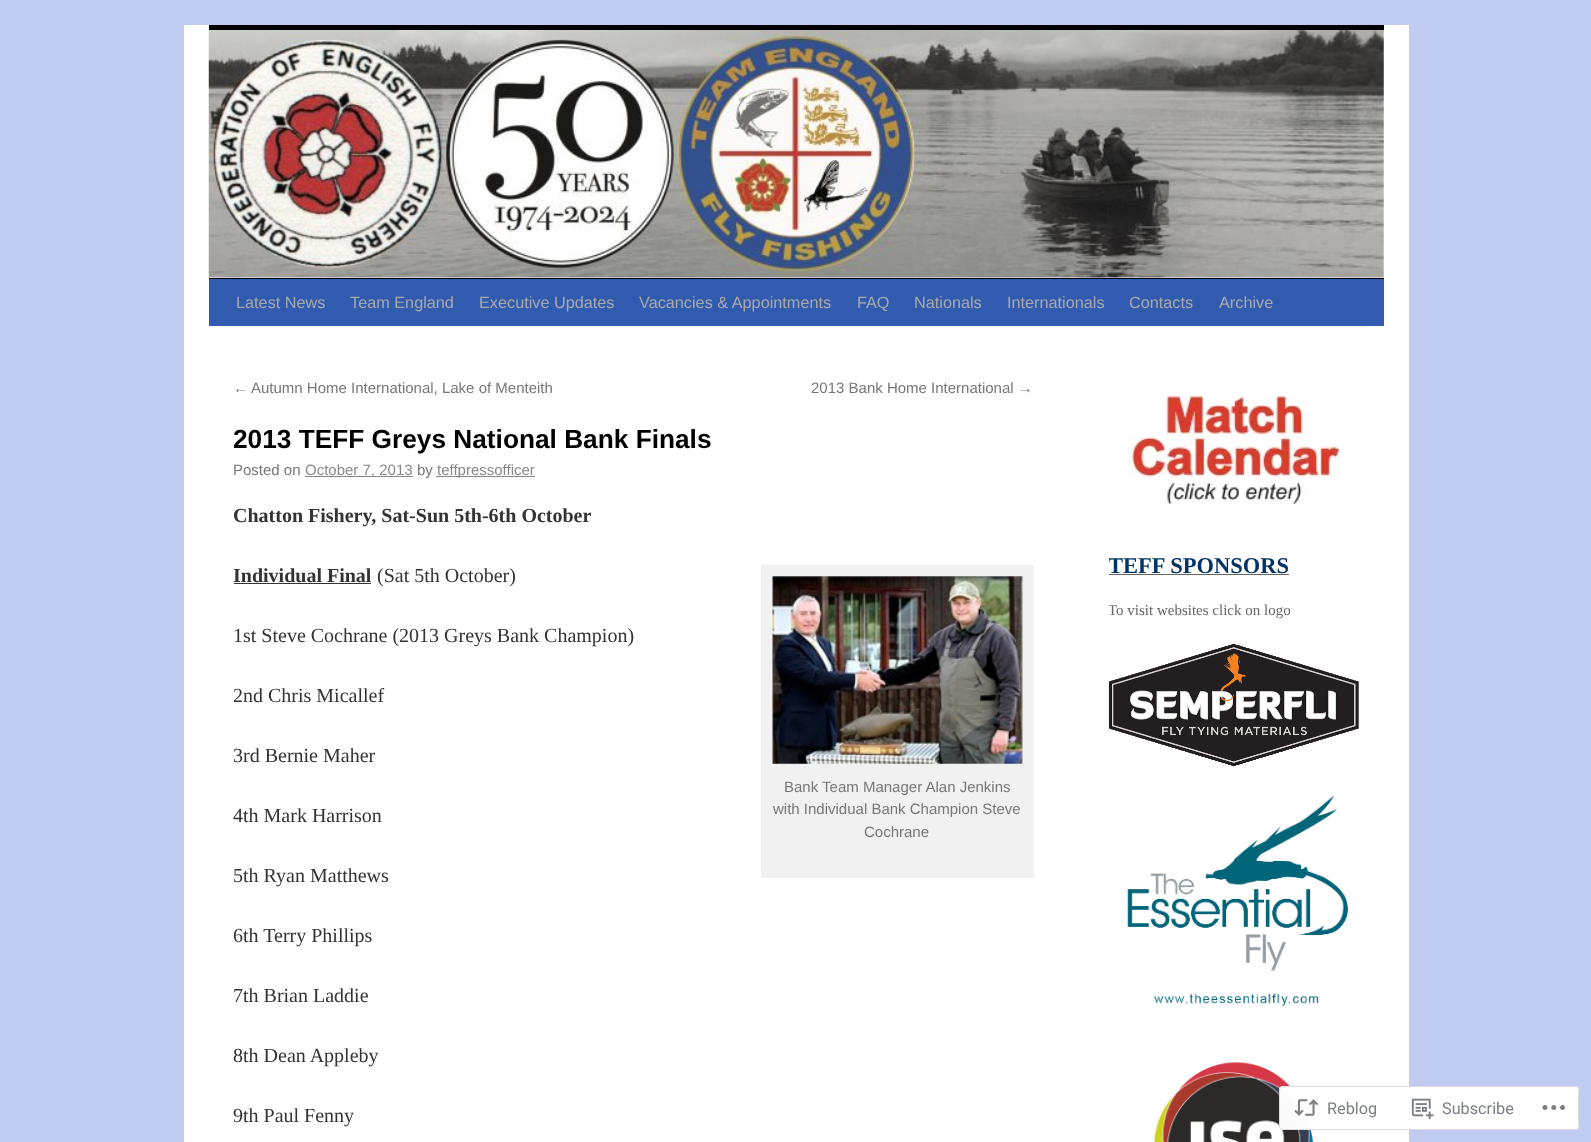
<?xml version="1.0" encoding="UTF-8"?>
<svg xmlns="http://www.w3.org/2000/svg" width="1591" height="1142">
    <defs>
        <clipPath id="clip1"><rect x="1109" y="376" width="275" height="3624"/></clipPath>
    </defs>
    <rect width="100%" height="100%" fill="#C0CBF2"/>
    <rect x="184" y="25" width="1225" height="1117" fill="#FFFFFF"/>
    <rect x="209" y="25" width="1175" height="5" fill="#000000"/>
    <rect x="209" y="278" width="1175" height="1" fill="#000000"/>
    <image x="208" y="30" width="1176" height="248" href="img_01.png"/>
    <rect x="209" y="279" width="1175" height="47" fill="#315BAF"/>
    <text x="236" y="308" font-family="Liberation Sans" font-size="16.25" fill="#AAAAAA">Latest News</text>
    <text x="350" y="308" font-family="Liberation Sans" font-size="16.25" fill="#AAAAAA">Team England</text>
    <text x="479" y="308" font-family="Liberation Sans" font-size="16.25" fill="#AAAAAA">Executive Updates</text>
    <text x="639" y="308" font-family="Liberation Sans" font-size="16.25" fill="#AAAAAA">Vacancies &amp; Appointments</text>
    <text x="857" y="308" font-family="Liberation Sans" font-size="16.25" fill="#AAAAAA">FAQ</text>
    <text x="914" y="308" font-family="Liberation Sans" font-size="16.25" fill="#AAAAAA">Nationals</text>
    <text x="1007" y="308" font-family="Liberation Sans" font-size="16.25" fill="#AAAAAA">Internationals</text>
    <text x="1129" y="308" font-family="Liberation Sans" font-size="16.25" fill="#AAAAAA">Contacts</text>
    <text x="1219" y="308" font-family="Liberation Sans" font-size="16.25" fill="#AAAAAA">Archive</text>
    <text x="233" y="393" font-family="Liberation Sans" font-size="15" fill="#777777">←</text>
    <text x="251" y="393" font-family="Liberation Sans" font-size="15" fill="#777777">Autumn Home International, Lake of Menteith</text>
    <text x="811" y="393" font-family="Liberation Sans" font-size="15" fill="#777777">2013 Bank Home International →</text>
    <text x="233" y="448" font-family="Liberation Sans" font-size="26.25" font-weight="700" fill="#000000">2013 TEFF Greys National Bank Finals</text>
    <text x="233" y="475" font-family="Liberation Sans" font-size="15" fill="#777777">Posted on</text>
    <rect x="305" y="476" width="108" height="1" fill="#888888"/>
    <text x="305" y="475" font-family="Liberation Sans" font-size="15" fill="#888888">October 7, 2013</text>
    <text x="417" y="475" font-family="Liberation Sans" font-size="15" fill="#777777">by</text>
    <rect x="436" y="476" width="99" height="1" fill="#888888"/>
    <text x="437" y="475" font-family="Liberation Sans" font-size="15" fill="#888888">teffpressofficer</text>
    <text x="233" y="522" font-family="Liberation Serif" font-size="20" font-weight="700" fill="#333333">Chatton Fishery, Sat-Sun 5th-6th October</text>
    <text x="233" y="582" font-family="Liberation Serif" font-size="20" font-weight="700" fill="#333333">Individual Final</text>
    <rect x="234" y="583" width="137" height="1" fill="#333333"/>
    <text x="377" y="582" font-family="Liberation Serif" font-size="20" fill="#333333">(Sat 5th October)</text>
    <text x="233" y="642" font-family="Liberation Serif" font-size="20" fill="#333333">1st Steve Cochrane (2013 Greys Bank Champion)</text>
    <text x="233" y="702" font-family="Liberation Serif" font-size="20" fill="#333333">2nd Chris Micallef</text>
    <text x="233" y="762" font-family="Liberation Serif" font-size="20" fill="#333333">3rd Bernie Maher</text>
    <text x="233" y="822" font-family="Liberation Serif" font-size="20" fill="#333333">4th Mark Harrison</text>
    <rect x="761" y="565" width="273" height="313" fill="#F1F1F1"/>
    <image x="772" y="576" width="251" height="188" href="img_02.png"/>
    <text x="784" y="792" font-family="Liberation Sans" font-size="15" fill="#777777">Bank Team Manager Alan Jenkins</text>
    <text x="773" y="814" font-family="Liberation Sans" font-size="15" fill="#777777">with Individual Bank Champion Steve</text>
    <text x="864" y="837" font-family="Liberation Sans" font-size="15" fill="#777777">Cochrane</text>
    <text x="233" y="882" font-family="Liberation Serif" font-size="20" fill="#333333">5th Ryan Matthews</text>
    <text x="233" y="942" font-family="Liberation Serif" font-size="20" fill="#333333">6th Terry Phillips</text>
    <text x="233" y="1002" font-family="Liberation Serif" font-size="20" fill="#333333">7th Brian Laddie</text>
    <text x="233" y="1062" font-family="Liberation Serif" font-size="20" fill="#333333">8th Dean Appleby</text>
    <text x="233" y="1122" font-family="Liberation Serif" font-size="20" fill="#333333">9th Paul Fenny</text>
    <image x="1128" y="395" width="212" height="110" href="img_03.png"/>
    <g clip-path="url(#clip1)">
        <text x="1108" y="573" font-family="Liberation Serif" font-size="22.5" font-weight="700" fill="#003366">TEFF SPONSORS</text>
    </g>
    <rect x="1109" y="574" width="180" height="1" fill="#666666"/>
    <g clip-path="url(#clip1)">
        <text x="1108" y="615" font-family="Liberation Serif" font-size="15" fill="#666666">To visit websites click on logo</text>
    </g>
    <image x="1108" y="643" width="251" height="124" href="img_04.png"/>
    <image x="1127" y="796" width="222" height="211" href="img_05.png"/>
    <image x="1153" y="1062" width="160" height="80" href="img_06.png"/>
    <rect x="1279" y="1086" width="300" height="44" rx="4" fill="#FFFFFF" fill-opacity="0.98"/>
    <rect x="1279.5" y="1086.5" width="299" height="43" rx="3.5" fill="none" stroke="#DCDCDE" stroke-opacity="0.98"/>
    <image x="1294" y="1099" width="25" height="17" href="img_07.png"/>
    <text x="1327" y="1114" font-family="Roboto" font-size="16.25" fill="#7B7F85">Reblog</text>
    <image x="1411" y="1098" width="23" height="22" href="img_08.png"/>
    <text x="1442" y="1114" font-family="Roboto" font-size="16.25" fill="#7B7F85">Subscribe</text>
    <image x="1542" y="1105" width="23" height="5" href="img_09.png"/>
</svg>
